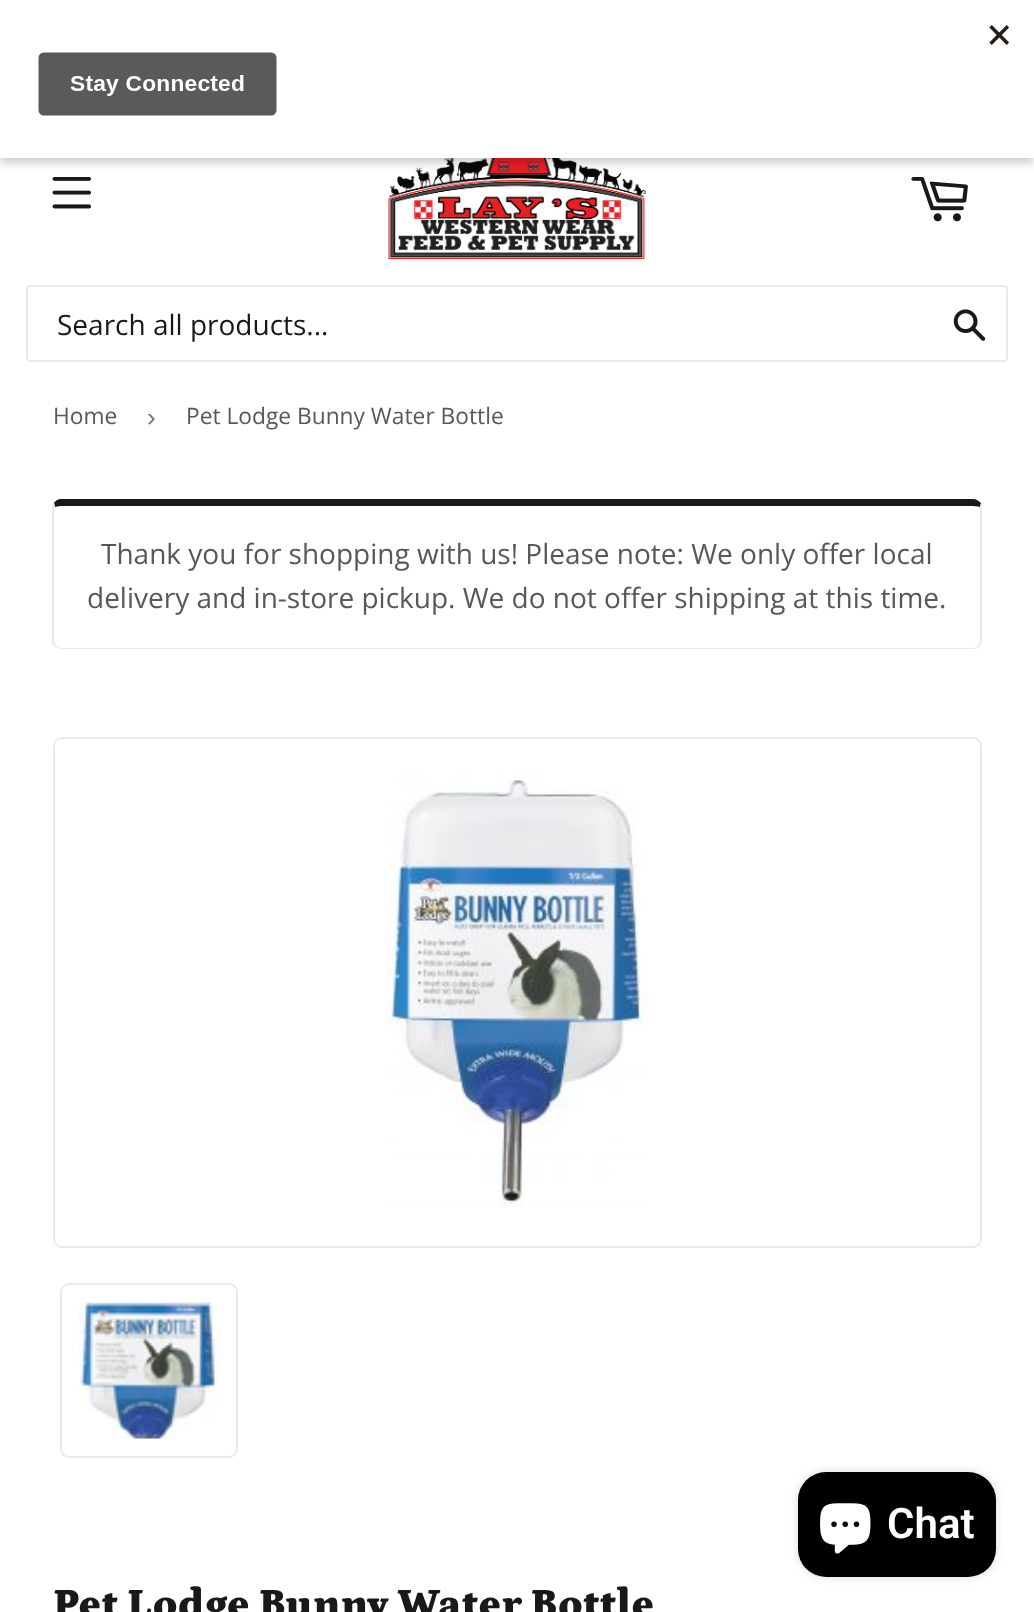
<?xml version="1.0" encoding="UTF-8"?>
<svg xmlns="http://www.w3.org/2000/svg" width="1034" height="1612">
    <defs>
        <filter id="blur1" x="-50%" y="-200%" width="200%" height="500%"><feGaussianBlur stdDeviation="5"/></filter>
        <filter id="blur2" x="-50%" y="-200%" width="200%" height="500%"><feGaussianBlur stdDeviation="4.5"/></filter>
    </defs>
    <rect width="100%" height="100%" fill="#FFFFFF"/>
    <image x="52" y="177" width="39" height="32" href="img_02.png"/>
    <image x="388" y="158" width="258" height="101" href="img_03.png"/>
    <image x="911" y="177" width="57" height="45" href="img_04.png"/>
    <rect x="0" y="5" width="1034" height="158" fill="#000000" fill-opacity="0.2" filter="url(#blur1)"/>
    <rect x="0" y="0" width="1034" height="158" fill="#FFFFFF"/>
    <image x="38" y="25" width="971" height="91" href="img_01.png"/>
    <rect x="27" y="286" width="980" height="75" rx="3" fill="none" stroke="#EAEAEA" stroke-width="2"/>
    <text x="57" y="335" font-family="Open Sans" font-size="28" fill="#191919">Search all products...</text>
    <image x="953" y="309" width="33" height="32" href="img_05.png"/>
    <text x="53" y="424" font-family="Open Sans" font-size="22.75" fill="#585858">Home</text>
    <text x="147" y="426" font-family="Liberation Sans" font-size="26" fill="#767676">›</text>
    <text x="186" y="424" font-family="Open Sans" font-size="22.75" fill="#585858">Pet Lodge Bunny Water Bottle</text>
    <path d="M 61 499 C 58 499 55 501 54 503 L 55 507 C 56 507 58 506 61 506 H 973 C 976 506 979 507 980 507 L 981 503 C 979 501 976 499 973 499 Z" fill="#191919"/>
    <path d="M 982 642 C 981 644 980 645 979 647 L 978 646 C 979 644 980 642 980 640 V 508 V 507 L 981 503 L 982 506 Z" fill="#EAEAEA"/>
    <path d="M 979 647 C 978 648 975 649 973 649 H 61 C 59 649 57 648 55 647 L 56 646 C 57 647 59 648 61 648 H 973 C 975 648 977 647 978 646 Z" fill="#EAEAEA"/>
    <path d="M 52 505 L 54 503 L 55 507 L 54 508 V 640 C 54 642 55 644 56 646 L 55 647 L 52 643 Z" fill="#EAEAEA"/>
    <text x="101" y="564" font-family="Open Sans" font-size="28" fill="#585858">Thank you for shopping with us! Please note: We only offer local</text>
    <text x="87" y="608" font-family="Open Sans" font-size="28" fill="#585858">delivery and in-store pickup. We do not offer shipping at this time.</text>
    <rect x="54" y="738" width="927" height="509" rx="8" fill="none" stroke="#EAEAEA" stroke-width="2"/>
    <image x="385" y="774" width="264" height="434" href="img_06.png"/>
    <rect x="61" y="1284" width="176" height="173" rx="8" fill="none" stroke="#EAEAEA" stroke-width="2"/>
    <image x="79" y="1302" width="140" height="137" href="img_07.png"/>
    <text x="53" y="1617" font-family="Petrona" font-size="42" font-weight="900" fill="#191919">Pet Lodge Bunny Water Bottle</text>
    <rect x="798" y="1472" width="198" height="105" rx="28" fill="#000000" fill-opacity="0.15" filter="url(#blur2)"/>
    <rect x="798" y="1472" width="198" height="105" rx="28" fill="#000000"/>
    <image x="820" y="1503" width="51" height="51" href="img_08.png"/>
    <text x="887" y="1538" font-family="Roboto" font-size="42" font-weight="600" fill="#FFFFFF">Chat</text>
</svg>
